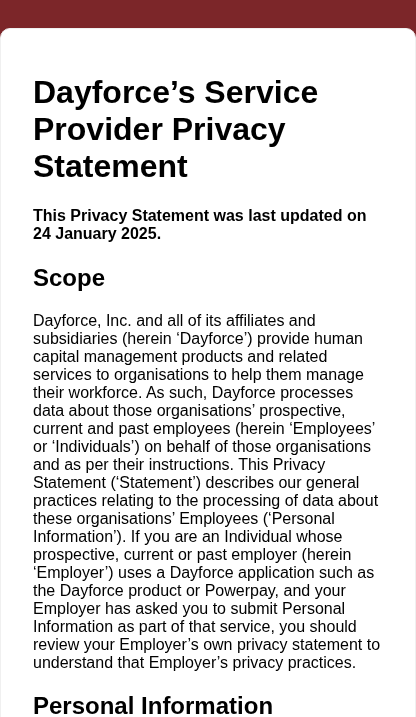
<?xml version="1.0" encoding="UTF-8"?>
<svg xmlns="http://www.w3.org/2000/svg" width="416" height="717">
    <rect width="100%" height="100%" fill="#7C2629"/>
    <rect x="0.5" y="28.5" width="415" height="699" rx="9.5" fill="#FFFFFF" stroke="#F0F0F0"/>
    <image x="33" y="80" width="347" height="634" href="img_01.png"/>
</svg>
